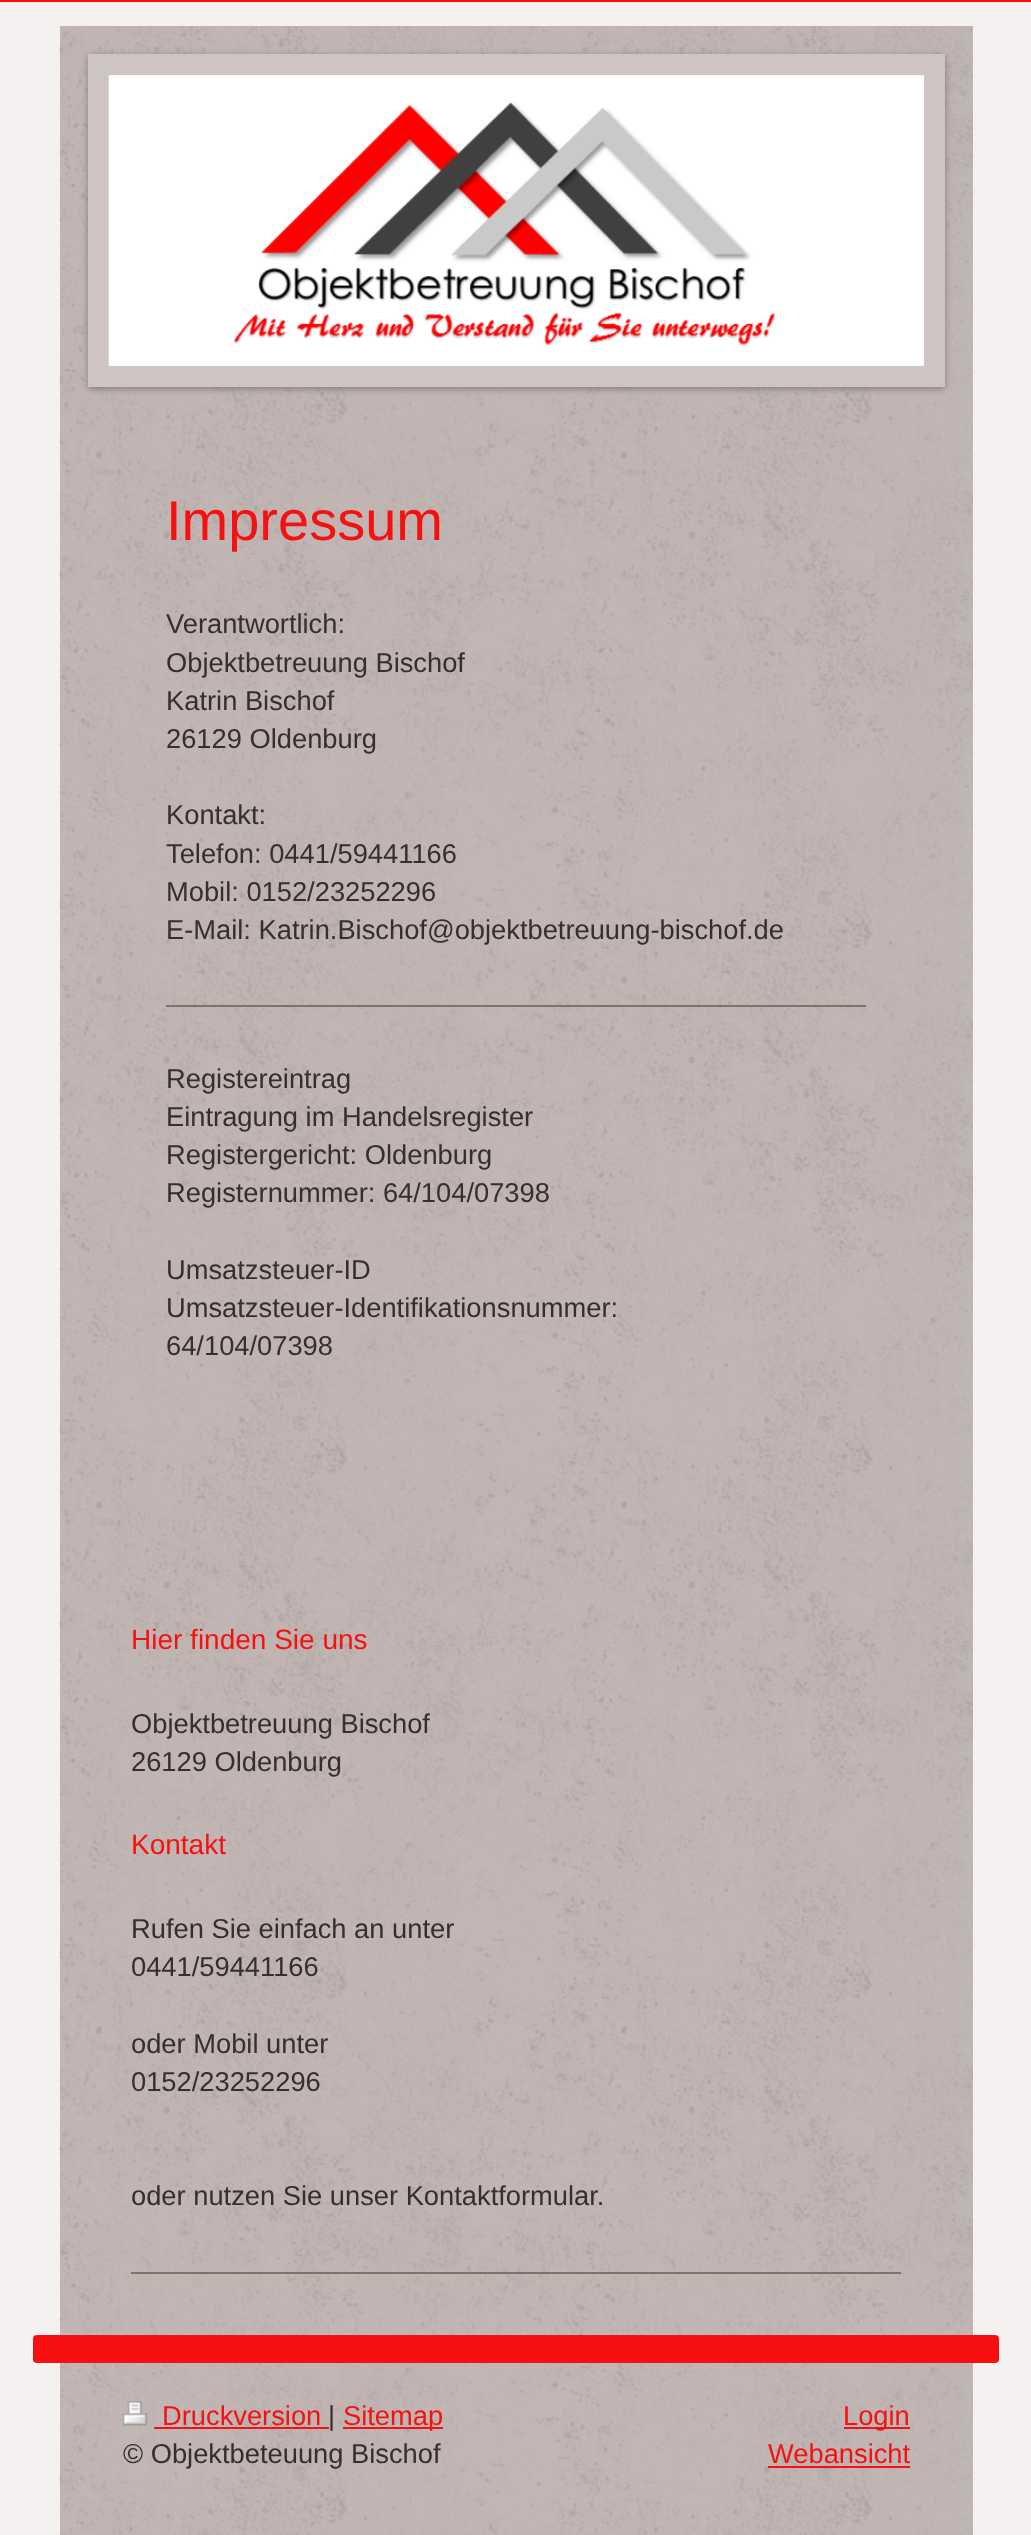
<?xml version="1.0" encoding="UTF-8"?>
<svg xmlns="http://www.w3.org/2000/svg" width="1031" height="2535">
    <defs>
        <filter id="blur1" x="-50%" y="-200%" width="200%" height="500%"><feGaussianBlur stdDeviation="3.5"/></filter>
    </defs>
    <rect width="100%" height="100%" fill="#F5F1F1"/>
    <rect x="0" y="0" width="1031" height="2" fill="#F71010"/>
    <rect x="60" y="26" width="913" height="2509" fill="#C2B7B5"/>
    <image x="59" y="26" width="914" height="2509" href="img_01.png"/>
    <rect x="88" y="56" width="857" height="333" fill="#000000" fill-opacity="0.3" filter="url(#blur1)"/>
    <rect x="98.5" y="64.5" width="836" height="312" fill="none" stroke="#CEC5C3" stroke-width="21"/>
    <rect x="109" y="75" width="815" height="291" fill="#EEEEEE"/>
    <image x="108" y="75" width="816" height="291" href="img_02.png"/>
    <text x="166" y="540" font-family="Liberation Sans" font-size="56" fill="#F71010">Impressum</text>
    <text font-family="Liberation Sans" font-size="27.3" fill="#352F2E">
        <tspan x="166" y="633">Verantwortlich:</tspan>
        <tspan x="166" y="672">Objektbetreuung Bischof</tspan>
        <tspan x="166" y="710">Katrin Bischof</tspan>
        <tspan x="166" y="748">26129 Oldenburg</tspan>
    </text>
    <text font-family="Liberation Sans" font-size="27.3" fill="#352F2E">
        <tspan x="166" y="824">Kontakt:</tspan>
        <tspan x="166" y="863">Telefon: 0441/59441166</tspan>
        <tspan x="166" y="901">Mobil: 0152/23252296</tspan>
        <tspan x="166" y="939">E-Mail: Katrin.Bischof@objektbetreuung-bischof.de</tspan>
    </text>
    <rect x="166" y="1005" width="700" height="2" fill="#81706C"/>
    <text font-family="Liberation Sans" font-size="27.3" fill="#352F2E">
        <tspan x="166" y="1088">Registereintrag</tspan>
        <tspan x="166" y="1126">Eintragung im Handelsregister</tspan>
        <tspan x="166" y="1164">Registergericht: Oldenburg</tspan>
        <tspan x="166" y="1202">Registernummer: 64/104/07398</tspan>
    </text>
    <text font-family="Liberation Sans" font-size="27.3" fill="#352F2E">
        <tspan x="166" y="1279">Umsatzsteuer-ID</tspan>
        <tspan x="166" y="1317">Umsatzsteuer-Identifikationsnummer:</tspan>
        <tspan x="166" y="1355">64/104/07398</tspan>
    </text>
    <text x="131" y="1649" font-family="Liberation Sans" font-size="28" fill="#F71010">Hier finden Sie uns</text>
    <text font-family="Liberation Sans" font-size="27.3" fill="#352F2E">
        <tspan x="131" y="1733">Objektbetreuung Bischof</tspan>
        <tspan x="131" y="1771">26129 Oldenburg</tspan>
    </text>
    <text x="131" y="1854" font-family="Liberation Sans" font-size="28" fill="#F71010">Kontakt</text>
    <text font-family="Liberation Sans" font-size="27.3" fill="#352F2E">
        <tspan x="131" y="1938">Rufen Sie einfach an unter</tspan>
        <tspan x="131" y="1976">0441/59441166</tspan>
    </text>
    <text font-family="Liberation Sans" font-size="27.3" fill="#352F2E">
        <tspan x="131" y="2053">oder Mobil unter</tspan>
        <tspan x="131" y="2091">0152/23252296</tspan>
    </text>
    <text x="131" y="2205" font-family="Liberation Sans" font-size="27.3" fill="#352F2E">oder nutzen Sie unser Kontaktformular.</text>
    <rect x="131" y="2272" width="770" height="2" fill="#81706C"/>
    <rect x="33" y="2335" width="966" height="28" rx="4" fill="#F71010"/>
    <image x="122" y="2401" width="26" height="25" href="img_03.png"/>
    <text x="162" y="2425" font-family="Liberation Sans" font-size="27.3" fill="#F71010">Druckversion</text>
    <rect x="154" y="2427" width="175" height="2" fill="#F71010"/>
    <text x="328" y="2425" font-family="Liberation Sans" font-size="27.3" fill="#352F2E">|</text>
    <rect x="343" y="2427" width="100" height="2" fill="#F71010"/>
    <text x="343" y="2425" font-family="Liberation Sans" font-size="27.3" fill="#F71010">Sitemap</text>
    <text x="123" y="2463" font-family="Liberation Sans" font-size="27.3" fill="#352F2E">© Objektbeteuung Bischof</text>
    <rect x="844" y="2427" width="66" height="2" fill="#F71010"/>
    <text x="843" y="2425" font-family="Liberation Sans" font-size="27.3" fill="#F71010">Login</text>
    <text x="768" y="2463" font-family="Liberation Sans" font-size="27.3" fill="#F71010">Webansicht</text>
    <rect x="768" y="2466" width="142" height="2" fill="#F71010"/>
</svg>
